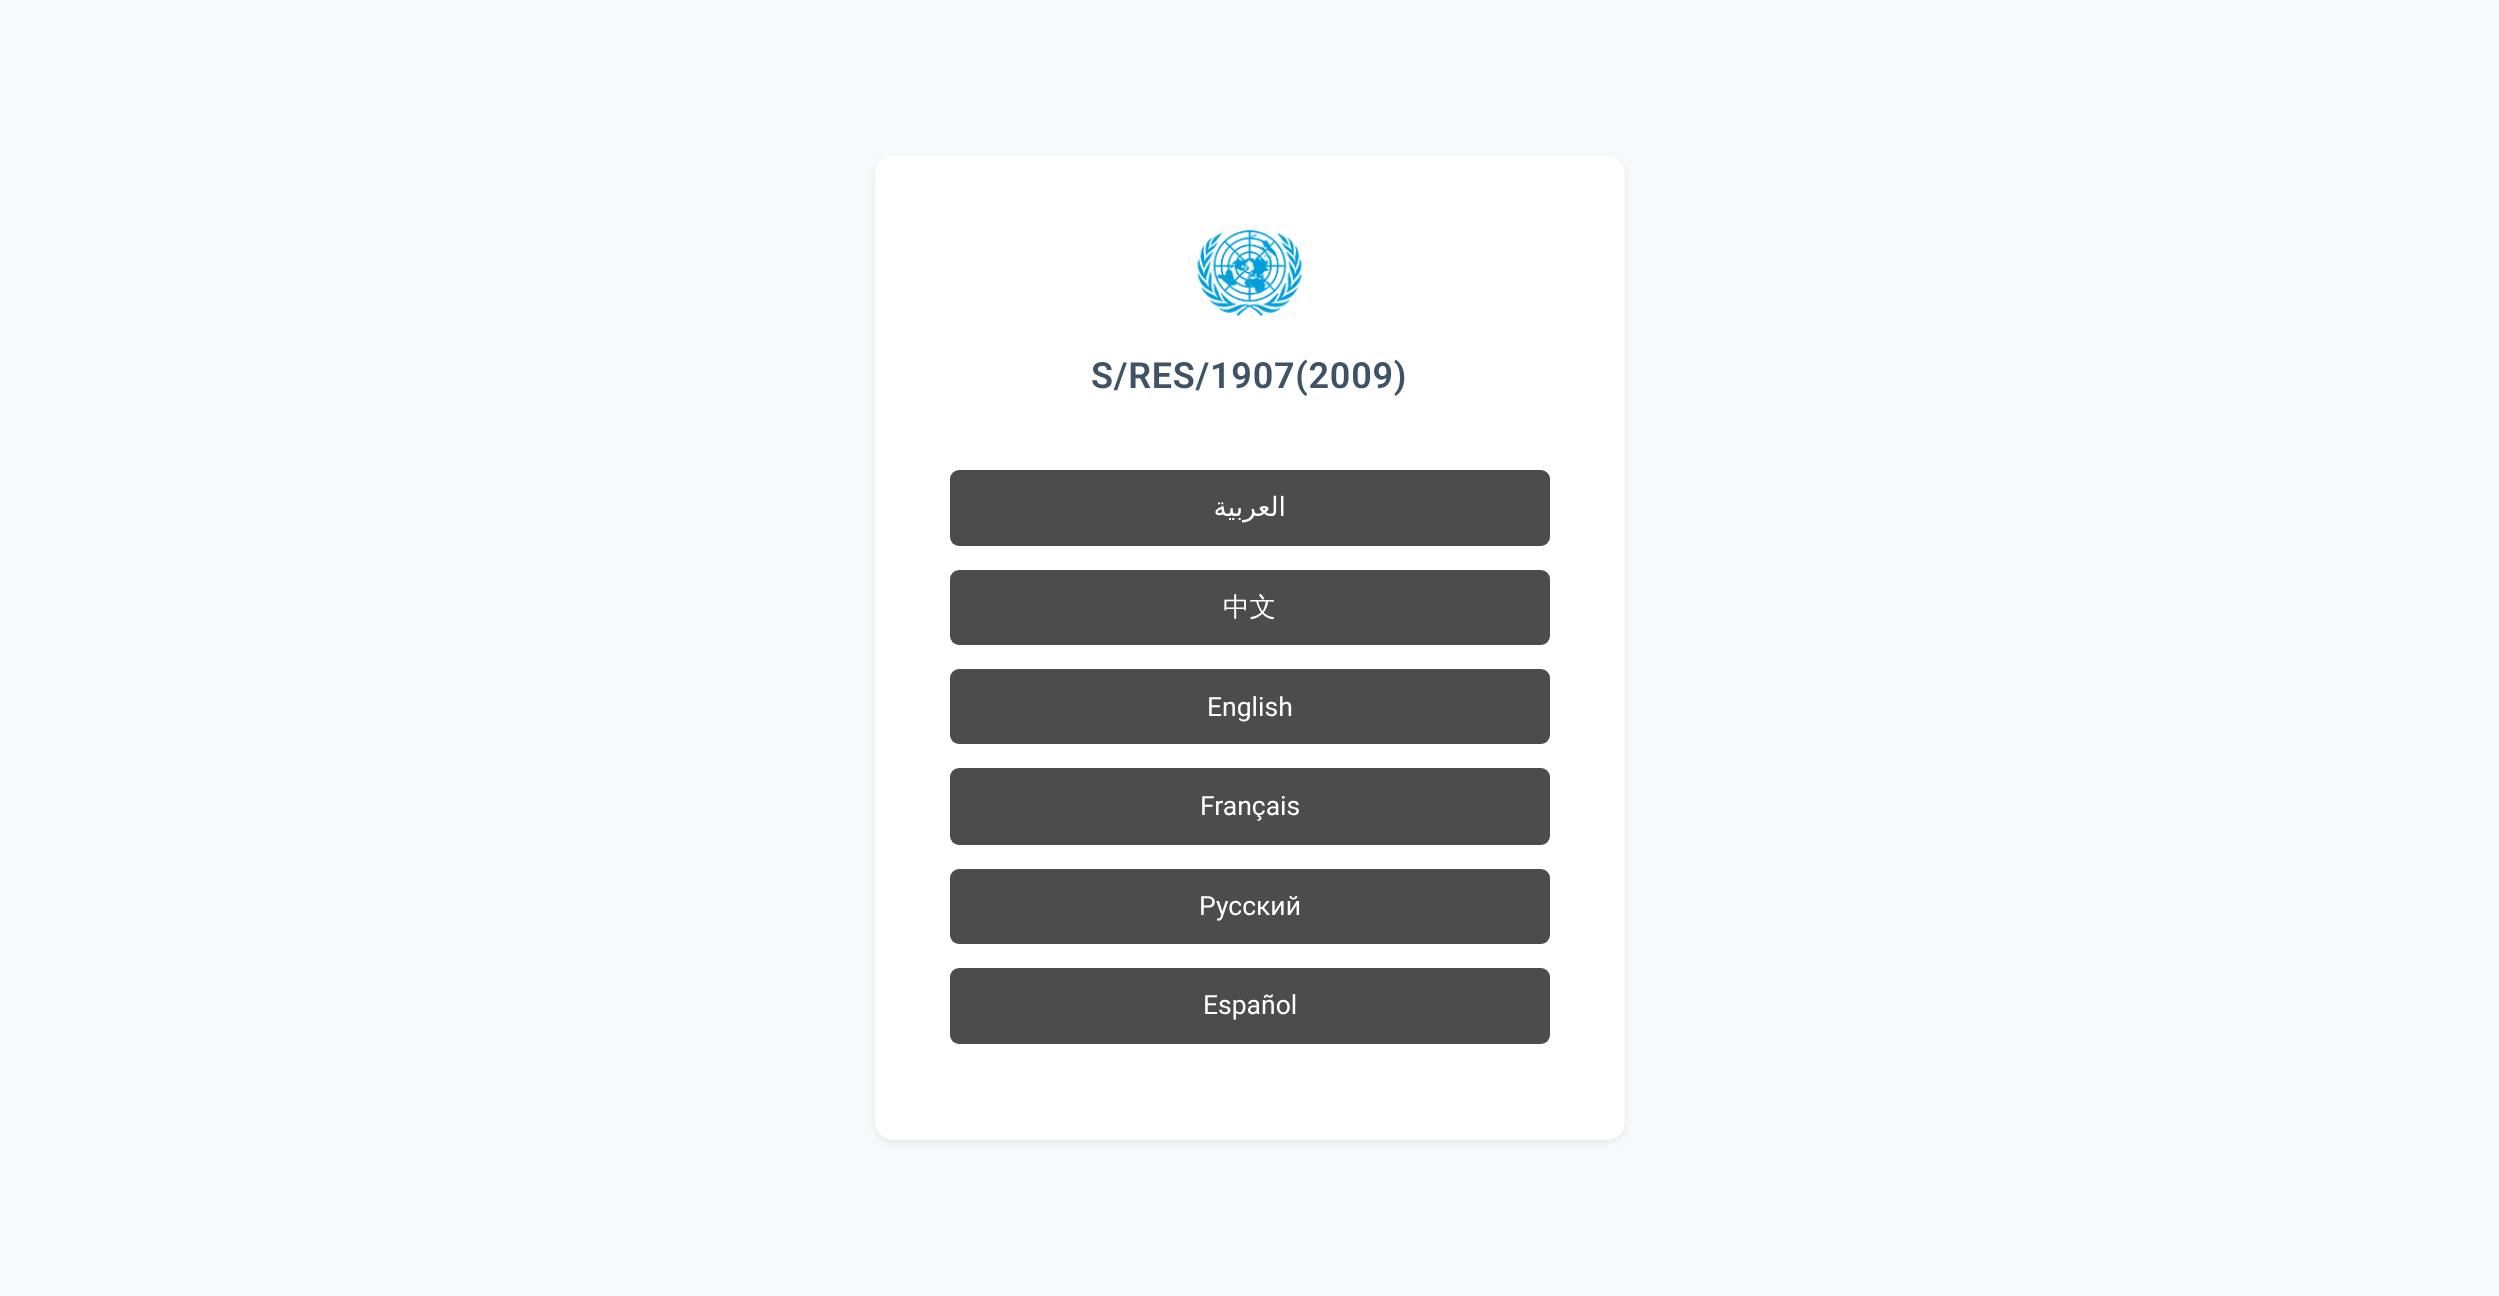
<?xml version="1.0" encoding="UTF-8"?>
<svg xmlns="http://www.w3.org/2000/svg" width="2499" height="1296">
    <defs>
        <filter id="blur1" x="-50%" y="-200%" width="200%" height="500%"><feGaussianBlur stdDeviation="3"/></filter>
    </defs>
    <rect width="100%" height="100%" fill="#F8F9FA"/>
    <rect x="875" y="159" width="750" height="984" rx="18" fill="#000000" fill-opacity="0.07" filter="url(#blur1)"/>
    <rect x="875" y="156" width="750" height="984" rx="18" fill="#FFFFFF"/>
    <image x="1197" y="230" width="105" height="86" href="img_01.png"/>
    <text x="1091" y="388" font-family="Roboto" font-size="36" font-weight="600" letter-spacing="0.75" fill="#405266">S/RES/1907(2009)</text>
    <rect x="950" y="470" width="600" height="76" rx="9" fill="#4C4C4C"/>
    <text x="1286" y="516" font-family="DejaVu Sans" font-size="26.5" direction="rtl" fill="#FFFFFF">العربية</text>
    <rect x="950" y="570" width="600" height="75" rx="9" fill="#4C4C4C"/>
    <text x="1223" y="616" font-family="WenQuanYi Zen Hei" font-size="26.5" font-weight="500" fill="#FFFFFF">中文</text>
    <rect x="950" y="669" width="600" height="75" rx="9" fill="#4C4C4C"/>
    <text x="1207" y="716" font-family="Roboto" font-size="26.5" fill="#FFFFFF">English</text>
    <rect x="950" y="768" width="600" height="77" rx="9" fill="#4C4C4C"/>
    <text x="1200" y="815" font-family="Roboto" font-size="26.5" fill="#FFFFFF">Français</text>
    <rect x="950" y="869" width="600" height="75" rx="9" fill="#4C4C4C"/>
    <text x="1199" y="915" font-family="Roboto" font-size="26.5" fill="#FFFFFF">Русский</text>
    <rect x="950" y="968" width="600" height="76" rx="9" fill="#4C4C4C"/>
    <text x="1203" y="1014" font-family="Roboto" font-size="26.5" fill="#FFFFFF">Español</text>
</svg>
